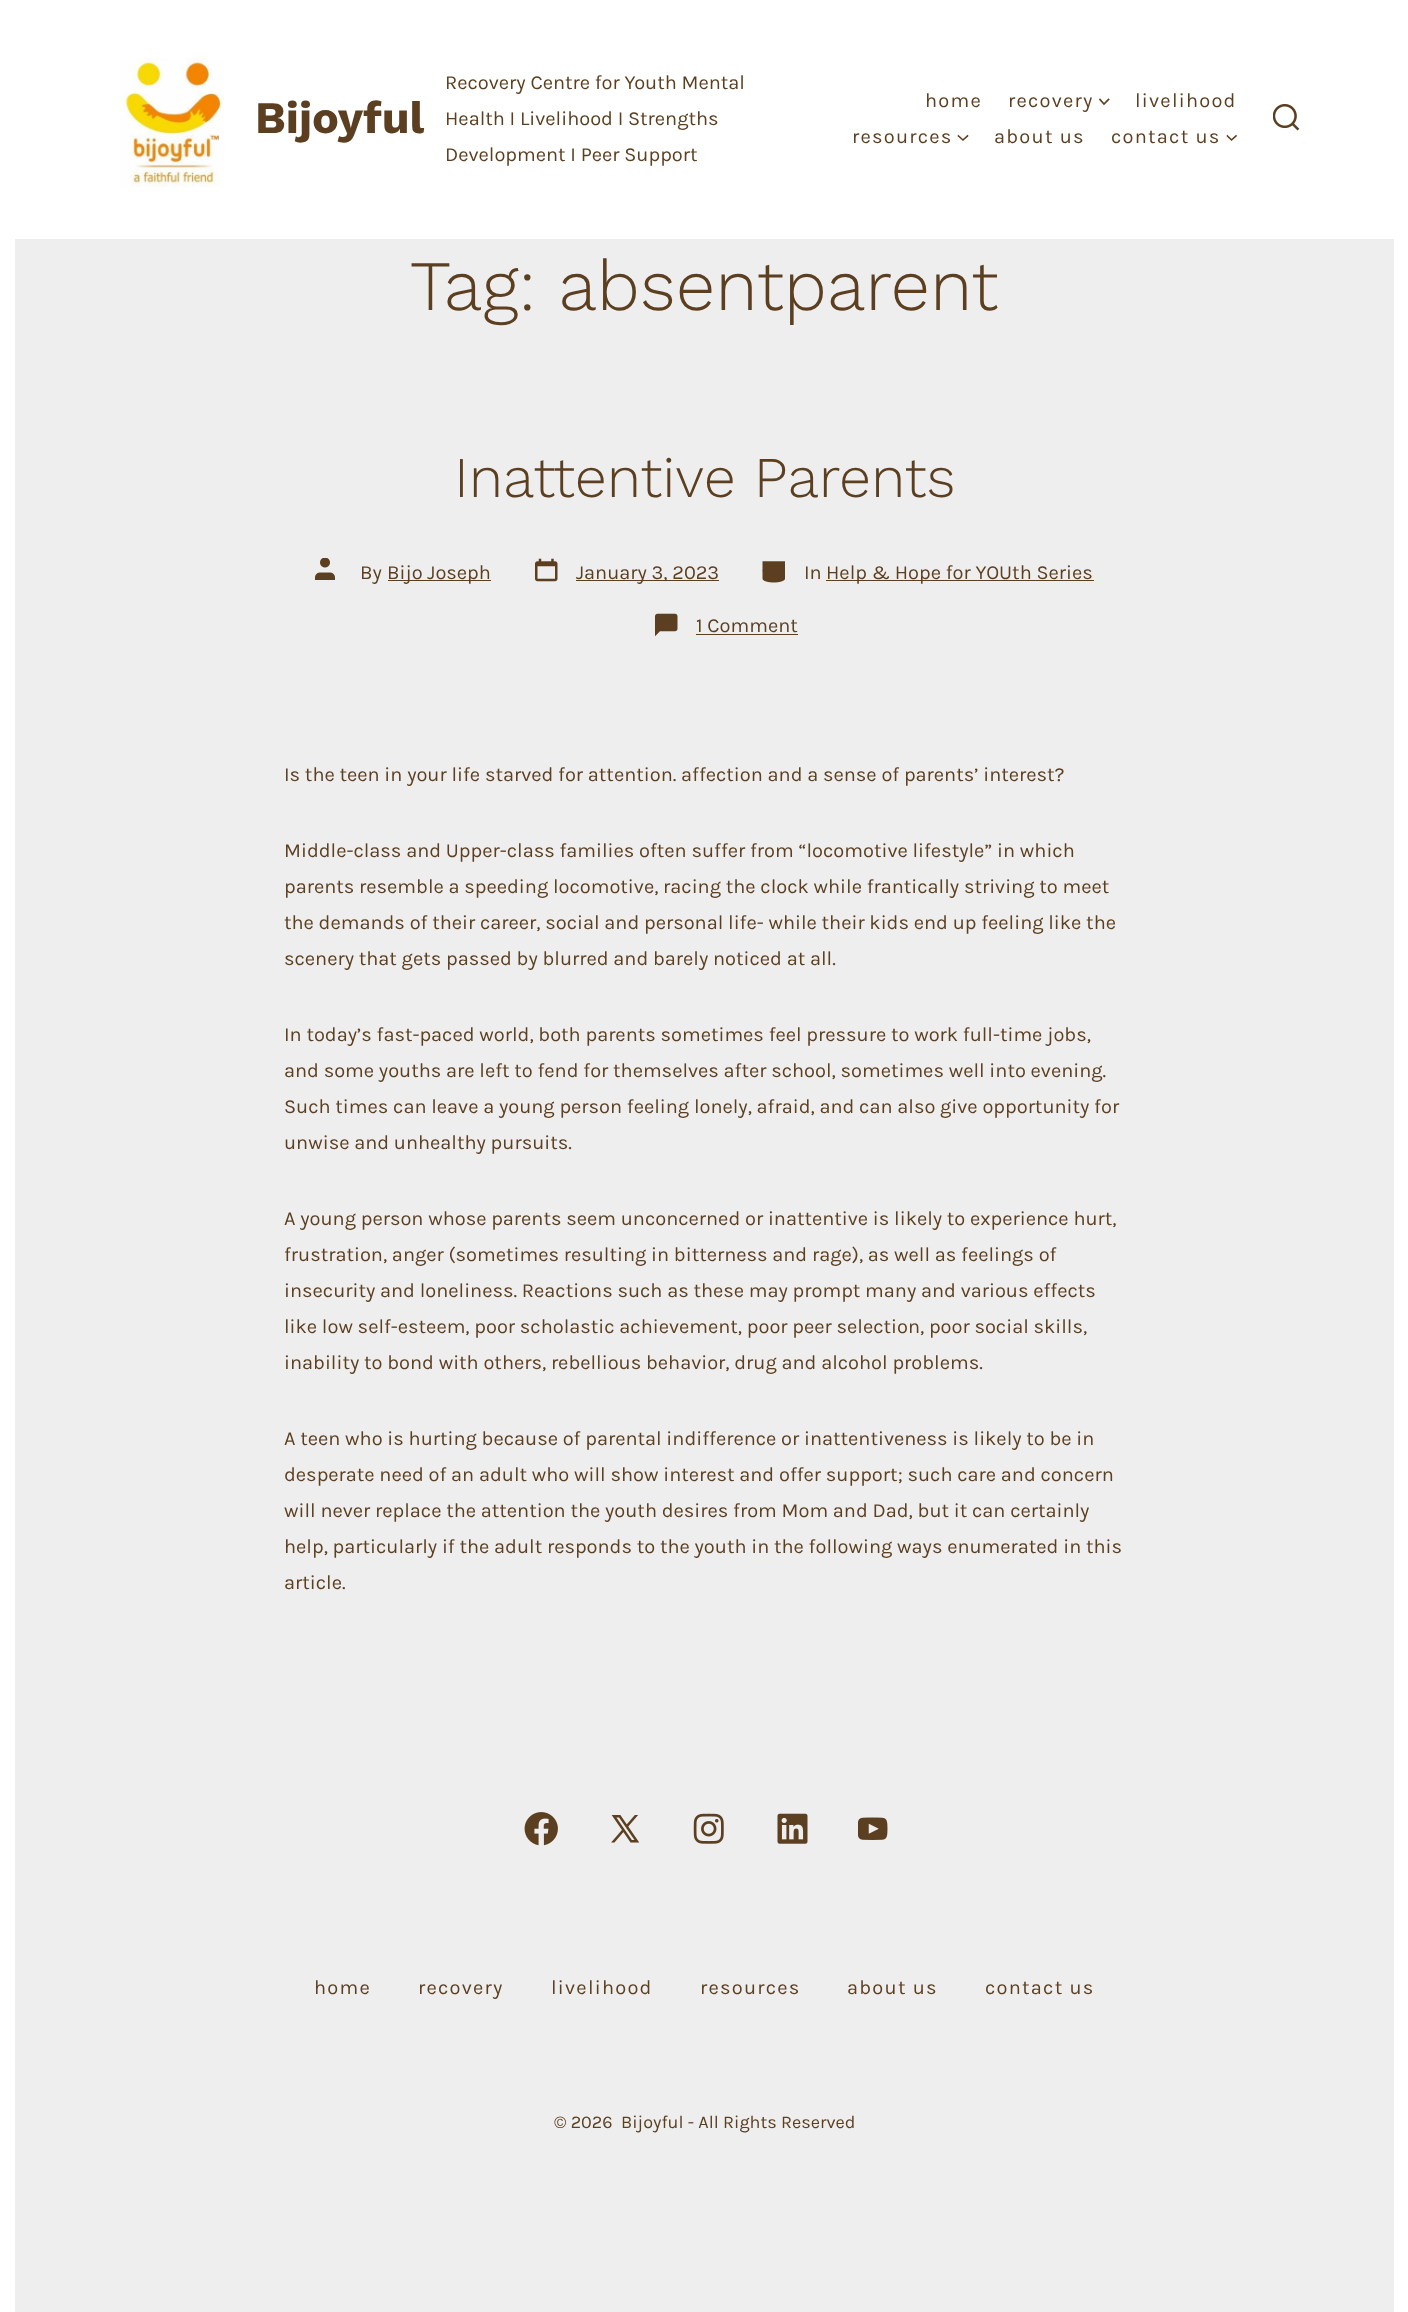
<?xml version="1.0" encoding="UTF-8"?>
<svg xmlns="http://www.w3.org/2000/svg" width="1408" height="2312">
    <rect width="100%" height="100%" fill="#EEEEEE"/>
    <rect x="1394" y="0" width="14" height="2312" fill="#FFFFFF"/>
    <rect x="0" y="0" width="15" height="2312" fill="#FFFFFF"/>
    <rect x="15" y="0" width="1379" height="239" fill="#FFFFFF"/>
    <image x="120" y="58" width="104" height="129" href="img_01.png"/>
    <text x="255" y="133" font-family="Work Sans" font-size="45" font-weight="700" fill="#5B3F20">Bijoyful</text>
    <text font-family="Karla" font-size="20" fill="#5B3F20">
        <tspan x="445" y="89">Recovery Centre for Youth Mental</tspan>
        <tspan x="445" y="125">Health I Livelihood I Strengths</tspan>
        <tspan x="445" y="161">Development I Peer Support</tspan>
    </text>
    <text x="925" y="107" font-family="Karla" font-size="20" letter-spacing="1.25" fill="#5B3F20">home</text>
    <text x="1008" y="107" font-family="Karla" font-size="20" letter-spacing="1.25" fill="#5B3F20">recovery</text>
    <path d="M 1100 99.5 L 1104 104 L 1108.5 99.5" fill="none" stroke="#5B3F20" stroke-width="1.6" stroke-linecap="square"/>
    <text x="1135" y="107" font-family="Karla" font-size="20" letter-spacing="1.25" fill="#5B3F20">livelihood</text>
    <text x="852" y="143" font-family="Karla" font-size="20" letter-spacing="1.25" fill="#5B3F20">resources</text>
    <path d="M 958.5 136 L 963 140 L 967.5 136" fill="none" stroke="#5B3F20" stroke-width="1.6" stroke-linecap="square"/>
    <text x="994" y="143" font-family="Karla" font-size="20" letter-spacing="1.25" fill="#5B3F20">about us</text>
    <text x="1111" y="143" font-family="Karla" font-size="20" letter-spacing="1.25" fill="#5B3F20">contact us</text>
    <path d="M 1227.5 136 L 1231.5 140 L 1236 136" fill="none" stroke="#5B3F20" stroke-width="1.6" stroke-linecap="square"/>
    <image x="1273" y="104" width="27" height="27" href="img_02.png"/>
    <text x="410" y="310" font-family="Work Sans" font-size="71" font-weight="300" fill="#5B3F20">Tag: absentparent</text>
    <text x="454" y="497" font-family="Work Sans" font-size="57.5" font-weight="300" fill="#5B3F20">Inattentive Parents</text>
    <image x="315" y="558" width="20" height="22" href="img_03.png"/>
    <text x="360" y="579" font-family="Karla" font-size="20" fill="#5B3F20">By</text>
    <rect x="388" y="580" width="103" height="1" fill="#5B3F20"/>
    <text x="387" y="579" font-family="Karla" font-size="20" fill="#5B3F20">Bijo Joseph</text>
    <image x="535" y="558" width="23" height="24" href="img_04.png"/>
    <rect x="576" y="580" width="143" height="1" fill="#5B3F20"/>
    <text x="576" y="579" font-family="Karla" font-size="20" fill="#5B3F20">January 3, 2023</text>
    <image x="762" y="561" width="23" height="22" href="img_05.png"/>
    <text x="804" y="579" font-family="Karla" font-size="20" fill="#5B3F20">In</text>
    <rect x="826" y="580" width="268" height="1" fill="#5B3F20"/>
    <text x="826" y="579" font-family="Karla" font-size="20" fill="#5B3F20">Help &amp; Hope for YOUth Series</text>
    <image x="655" y="613" width="23" height="24" href="img_06.png"/>
    <text x="696" y="632" font-family="Karla" font-size="20" fill="#5B3F20">1 Comment</text>
    <rect x="696" y="634" width="102" height="1" fill="#5B3F20"/>
    <text x="284" y="781" font-family="Karla" font-size="20" fill="#5B3F20">Is the teen in your life starved for attention. affection and a sense of parents’ interest?</text>
    <text font-family="Karla" font-size="20" fill="#5B3F20">
        <tspan x="284" y="857">Middle-class and Upper-class families often suffer from “locomotive lifestyle” in which</tspan>
        <tspan x="284" y="893">parents resemble a speeding locomotive, racing the clock while frantically striving to meet</tspan>
        <tspan x="284" y="929">the demands of their career, social and personal life- while their kids end up feeling like the</tspan>
        <tspan x="284" y="965">scenery that gets passed by blurred and barely noticed at all.</tspan>
    </text>
    <text font-family="Karla" font-size="20" fill="#5B3F20">
        <tspan x="284" y="1041">In today’s fast-paced world, both parents sometimes feel pressure to work full-time jobs,</tspan>
        <tspan x="284" y="1077">and some youths are left to fend for themselves after school, sometimes well into evening.</tspan>
        <tspan x="284" y="1113">Such times can leave a young person feeling lonely, afraid, and can also give opportunity for</tspan>
        <tspan x="284" y="1149">unwise and unhealthy pursuits.</tspan>
    </text>
    <text font-family="Karla" font-size="20" fill="#5B3F20">
        <tspan x="284" y="1225">A young person whose parents seem unconcerned or inattentive is likely to experience hurt,</tspan>
        <tspan x="284" y="1261">frustration, anger (sometimes resulting in bitterness and rage), as well as feelings of</tspan>
        <tspan x="284" y="1297">insecurity and loneliness. Reactions such as these may prompt many and various effects</tspan>
        <tspan x="284" y="1333">like low self-esteem, poor scholastic achievement, poor peer selection, poor social skills,</tspan>
        <tspan x="284" y="1369">inability to bond with others, rebellious behavior, drug and alcohol problems.</tspan>
    </text>
    <text font-family="Karla" font-size="20" fill="#5B3F20">
        <tspan x="284" y="1445">A teen who is hurting because of parental indifference or inattentiveness is likely to be in</tspan>
        <tspan x="284" y="1481">desperate need of an adult who will show interest and offer support; such care and concern</tspan>
        <tspan x="284" y="1517">will never replace the attention the youth desires from Mom and Dad, but it can certainly</tspan>
        <tspan x="284" y="1553">help, particularly if the adult responds to the youth in the following ways enumerated in this</tspan>
        <tspan x="284" y="1589">article.</tspan>
    </text>
    <image x="524" y="1812" width="34" height="34" href="img_07.png"/>
    <image x="611" y="1815" width="29" height="28" href="img_08.png"/>
    <image x="693" y="1813" width="31" height="31" href="img_09.png"/>
    <image x="777" y="1813" width="31" height="31" href="img_10.png"/>
    <image x="858" y="1817" width="30" height="23" href="img_11.png"/>
    <text x="314" y="1994" font-family="Karla" font-size="20" letter-spacing="1.25" fill="#5B3F20">home</text>
    <text x="418" y="1994" font-family="Karla" font-size="20" letter-spacing="1.25" fill="#5B3F20">recovery</text>
    <text x="551" y="1994" font-family="Karla" font-size="20" letter-spacing="1.25" fill="#5B3F20">livelihood</text>
    <text x="700" y="1994" font-family="Karla" font-size="20" letter-spacing="1.25" fill="#5B3F20">resources</text>
    <text x="847" y="1994" font-family="Karla" font-size="20" letter-spacing="1.25" fill="#5B3F20">about us</text>
    <text x="985" y="1994" font-family="Karla" font-size="20" letter-spacing="1.25" fill="#5B3F20">contact us</text>
    <text x="554" y="2128" font-family="Karla" font-size="18" fill="#5B3F20">© 2026</text>
    <text x="621" y="2128" font-family="Karla" font-size="18" fill="#5B3F20">Bijoyful - All Rights Reserved</text>
</svg>
